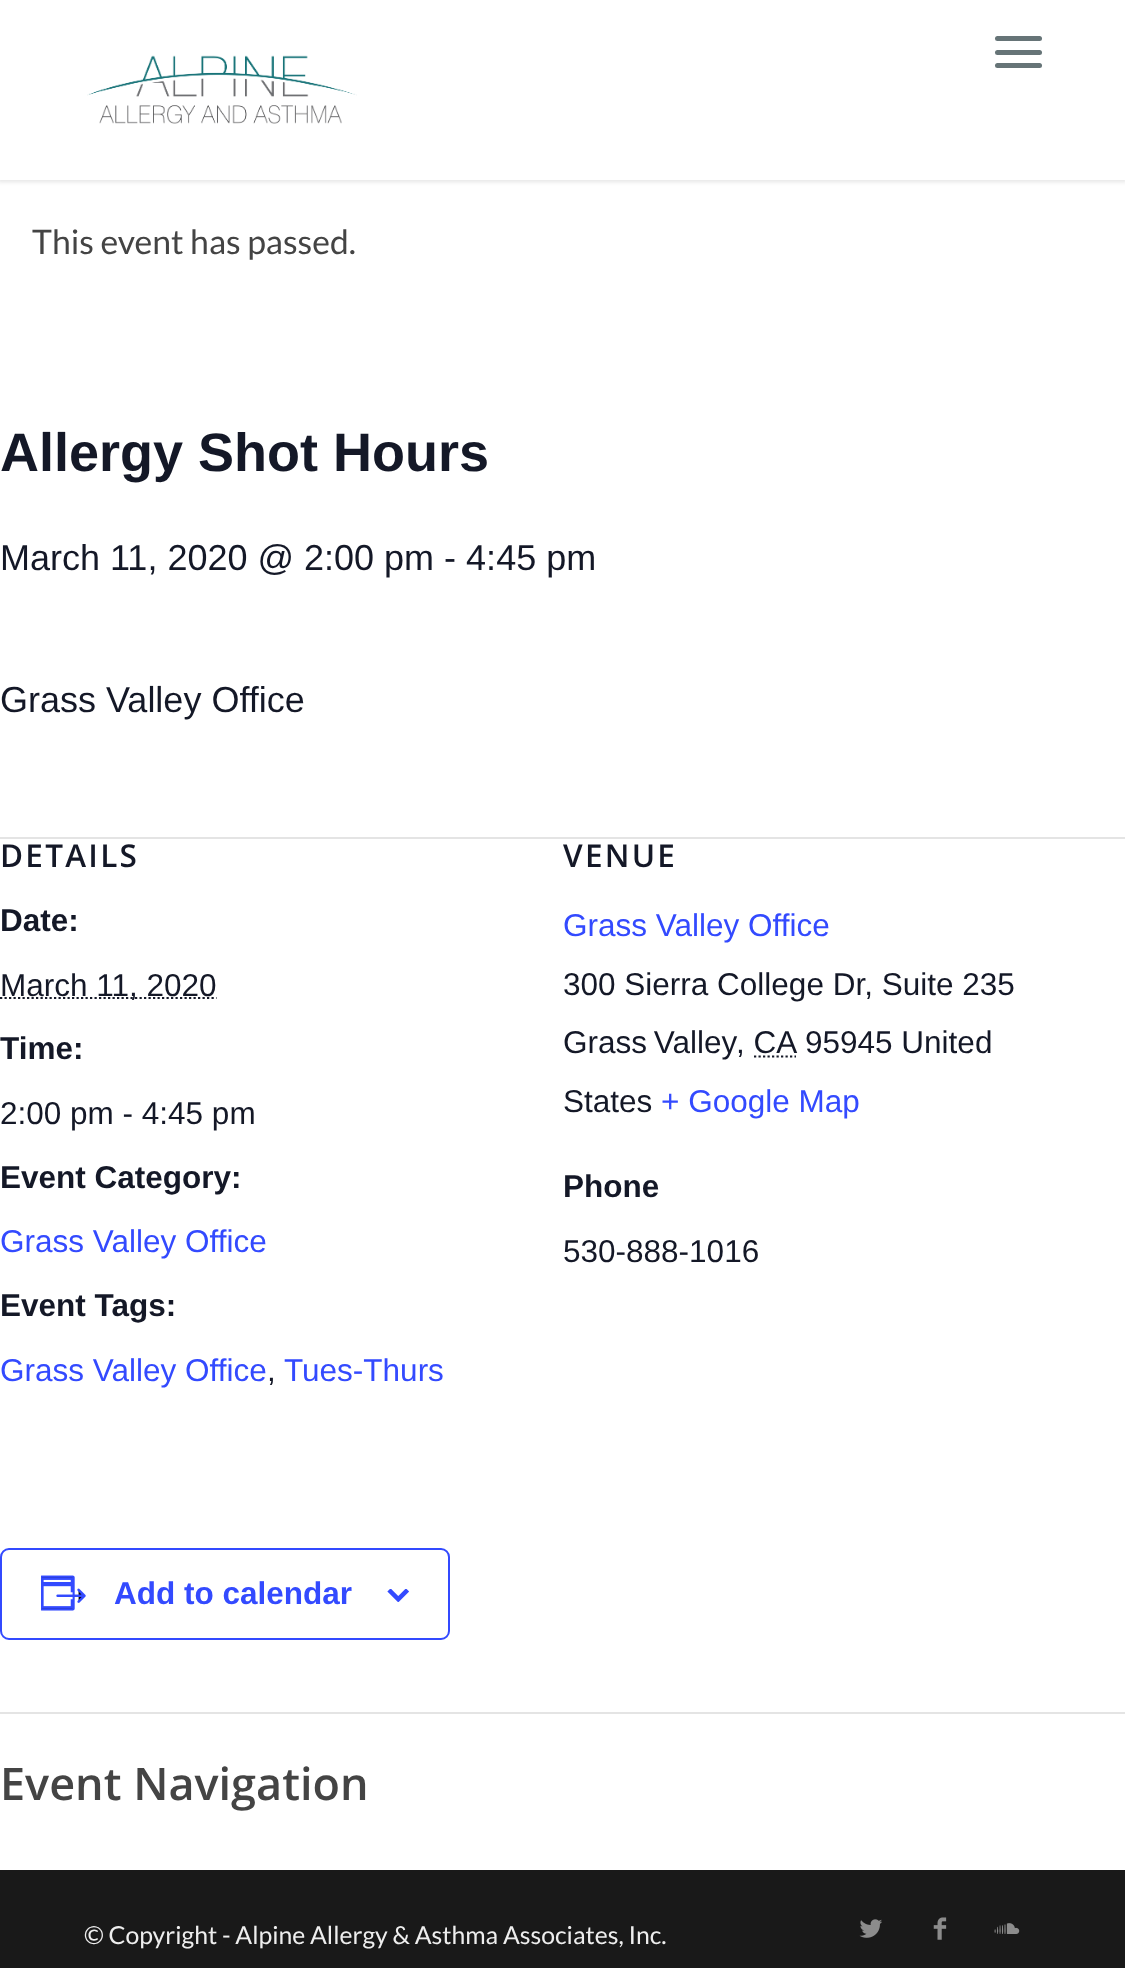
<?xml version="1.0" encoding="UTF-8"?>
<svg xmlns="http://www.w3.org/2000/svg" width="1125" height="1968">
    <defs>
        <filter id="blur1" x="-50%" y="-200%" width="200%" height="500%"><feGaussianBlur stdDeviation="2"/></filter>
    </defs>
    <rect width="100%" height="100%" fill="#FFFFFF"/>
    <rect x="-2" y="-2" width="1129" height="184" fill="#000000" fill-opacity="0.1" filter="url(#blur1)"/>
    <rect x="0" y="0" width="1125" height="180" fill="#FFFFFF"/>
    <image x="87" y="55" width="270" height="69" href="img_01.png"/>
    <rect x="995" y="50" width="47" height="5" rx="2.5" fill="#667477"/>
    <rect x="995" y="36" width="47" height="5" rx="2.5" fill="#667477"/>
    <rect x="995" y="63" width="47" height="5" rx="2.5" fill="#667477"/>
    <text x="32" y="254" font-family="Lato" font-size="33.75" fill="#444444">This event has passed.</text>
    <text x="0" y="471" font-family="Liberation Sans" font-size="54" font-weight="700" fill="#141827">Allergy Shot Hours</text>
    <text x="0" y="570" font-family="Liberation Sans" font-size="36" fill="#141827">March 11, 2020 @ 2:00 pm - 4:45 pm</text>
    <text x="0" y="712" font-family="Liberation Sans" font-size="36" fill="#141827">Grass Valley Office</text>
    <rect x="0" y="837" width="1125" height="2" fill="#E4E4E4"/>
    <text x="0" y="867" font-family="Open Sans" font-size="31.5" font-weight="600" letter-spacing="2.25" fill="#141827">DETAILS</text>
    <text x="0" y="931" font-family="Liberation Sans" font-size="31.5" font-weight="700" fill="#141827">Date:</text>
    <path d="M 0 998 H 216.5" fill="none" stroke="#141827" stroke-width="2.2" stroke-dasharray="2.25 2.25"/>
    <text x="0" y="996" font-family="Liberation Sans" font-size="31.5" fill="#141827">March 11, 2020</text>
    <text x="0" y="1059" font-family="Liberation Sans" font-size="31.5" font-weight="700" fill="#141827">Time:</text>
    <text x="0" y="1124" font-family="Liberation Sans" font-size="31.5" fill="#141827">2:00 pm - 4:45 pm</text>
    <text x="0" y="1188" font-family="Liberation Sans" font-size="31.5" font-weight="700" fill="#141827">Event Category:</text>
    <text x="0" y="1252" font-family="Liberation Sans" font-size="31.5" fill="#334AFF">Grass Valley Office</text>
    <text x="0" y="1316" font-family="Liberation Sans" font-size="31.5" font-weight="700" fill="#141827">Event Tags:</text>
    <text x="0" y="1381" font-family="Liberation Sans" font-size="31.5" fill="#334AFF">Grass Valley Office</text>
    <text x="267" y="1381" font-family="Liberation Sans" font-size="31.5" fill="#141827">,</text>
    <text x="284" y="1381" font-family="Liberation Sans" font-size="31.5" fill="#334AFF">Tues-Thurs</text>
    <text x="563" y="867" font-family="Open Sans" font-size="31.5" font-weight="600" letter-spacing="2.25" fill="#141827">VENUE</text>
    <text x="563" y="936" font-family="Liberation Sans" font-size="31.5" fill="#334AFF">Grass Valley Office</text>
    <text font-family="Liberation Sans" font-size="31.5" fill="#141827">
        <tspan x="563" y="995">300 Sierra College Dr, Suite 235</tspan>
        <tspan x="563" y="1053" word-spacing="-2">Grass Valley</tspan>
    </text>
    <text x="736" y="1053" font-family="Liberation Sans" font-size="31.5" fill="#141827">, CA</text>
    <path d="M 754 1056.5 H 796" fill="none" stroke="#141827" stroke-width="2.2" stroke-dasharray="2.25 2.25"/>
    <text x="805" y="1053" font-family="Liberation Sans" font-size="31.5" fill="#141827">95945 United</text>
    <text x="563" y="1112" font-family="Liberation Sans" font-size="31.5" fill="#141827">States</text>
    <text x="661" y="1112" font-family="Liberation Sans" font-size="31.5" fill="#334AFF">+ Google Map</text>
    <text x="563" y="1197" font-family="Liberation Sans" font-size="31.5" font-weight="700" fill="#141827">Phone</text>
    <text x="563" y="1262" font-family="Liberation Sans" font-size="31.5" fill="#141827">530-888-1016</text>
    <rect x="1" y="1549" width="448" height="90" rx="8" fill="none" stroke="#334AFF" stroke-width="2"/>
    <image x="41" y="1575" width="45" height="36" href="img_02.png"/>
    <text x="114" y="1604" font-family="Liberation Sans" font-size="31.5" font-weight="700" fill="#334AFF">Add to calendar</text>
    <image x="387" y="1589" width="22" height="13" href="img_03.png"/>
    <rect x="0" y="1712" width="1125" height="2" fill="#E4E4E4"/>
    <text x="0" y="1800" font-family="Open Sans" font-size="45" font-weight="600" fill="#444444">Event Navigation</text>
    <rect x="0" y="1870" width="1125" height="98" fill="#191919"/>
    <text x="84" y="1944" font-family="Lato" font-size="24.75" fill="#EEEEEE">© Copyright - Alpine Allergy &amp; Asthma Associates, Inc.</text>
    <image x="859" y="1919" width="23" height="19" href="img_04.png"/>
    <image x="933" y="1917" width="14" height="23" href="img_05.png"/>
    <image x="994" y="1923" width="26" height="11" href="img_06.png"/>
</svg>
